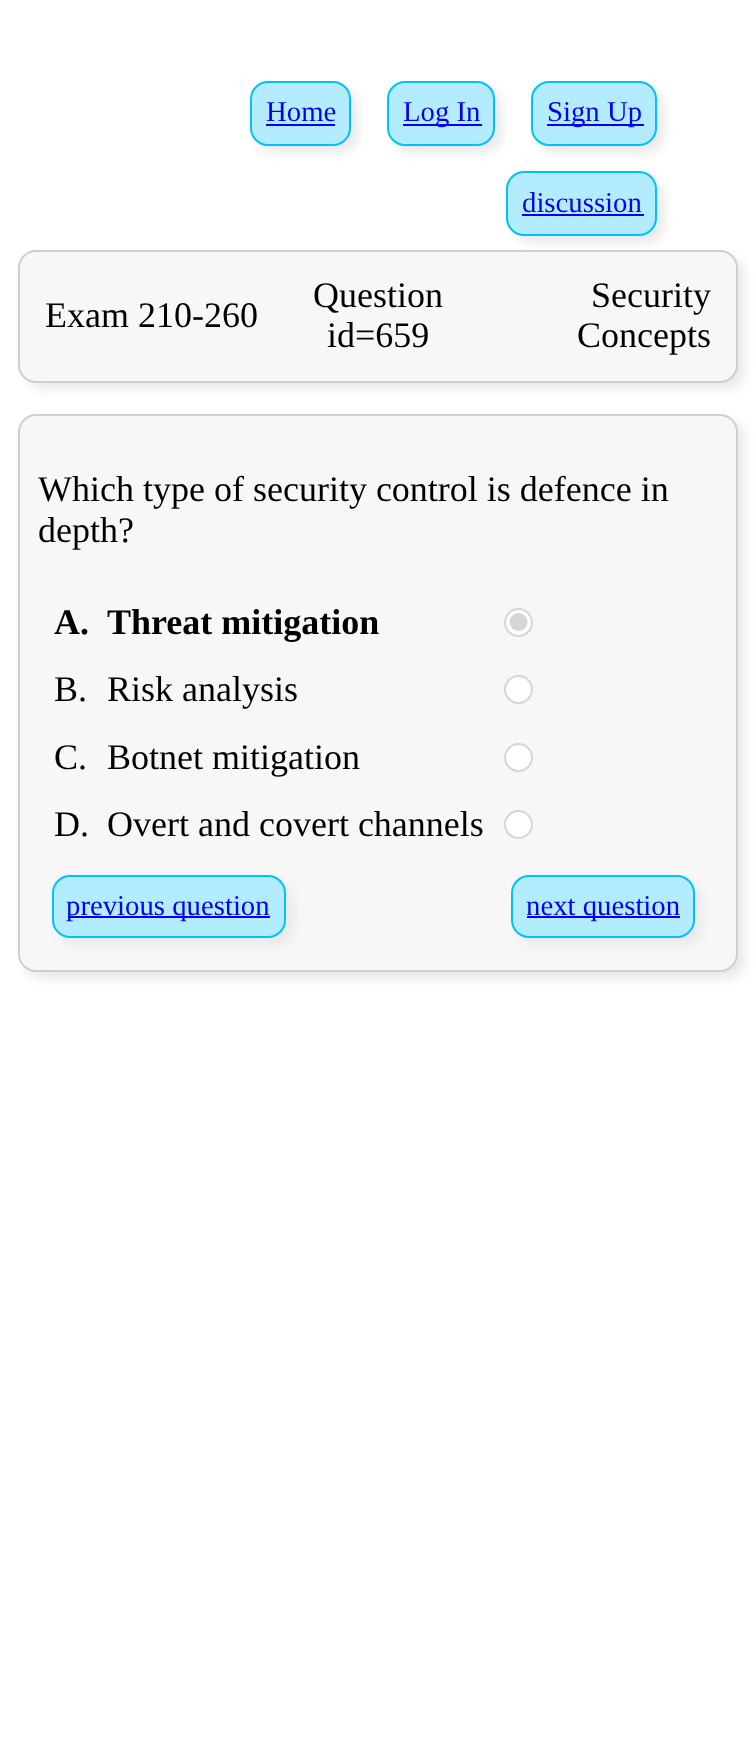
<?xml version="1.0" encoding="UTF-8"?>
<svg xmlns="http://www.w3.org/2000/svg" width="756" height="1740">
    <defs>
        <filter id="blur1" x="-50%" y="-200%" width="200%" height="500%"><feGaussianBlur stdDeviation="5.5"/></filter>
    </defs>
    <rect width="100%" height="100%" fill="#FFFFFF"/>
    <rect x="257" y="88" width="101" height="65" rx="18" fill="#E9E9E9" filter="url(#blur1)"/>
    <rect x="251" y="82" width="99" height="63" rx="17" fill="#B3ECFF" stroke="#00C1FF" stroke-width="2"/>
    <text x="266" y="121" font-family="Liberation Serif" font-size="28.75" fill="#0000EE">Home</text>
    <rect x="266" y="124" width="69" height="2" fill="#0000EE"/>
    <rect x="394" y="88" width="108" height="65" rx="18" fill="#E9E9E9" filter="url(#blur1)"/>
    <rect x="388" y="82" width="106" height="63" rx="17" fill="#B3ECFF" stroke="#00C1FF" stroke-width="2"/>
    <rect x="403" y="124" width="79" height="2" fill="#0000EE"/>
    <text x="403" y="121" font-family="Liberation Serif" font-size="28.75" fill="#0000EE">Log In</text>
    <rect x="538" y="88" width="126" height="65" rx="18" fill="#E9E9E9" filter="url(#blur1)"/>
    <rect x="532" y="82" width="124" height="63" rx="17" fill="#B3ECFF" stroke="#00C1FF" stroke-width="2"/>
    <rect x="547" y="124" width="97" height="2" fill="#0000EE"/>
    <text x="547" y="121" font-family="Liberation Serif" font-size="28.75" fill="#0000EE">Sign Up</text>
    <rect x="513" y="178" width="151" height="65" rx="18" fill="#E9E9E9" filter="url(#blur1)"/>
    <rect x="507" y="172" width="149" height="63" rx="17" fill="#B3ECFF" stroke="#00C1FF" stroke-width="2"/>
    <text x="522" y="212" font-family="Liberation Serif" font-size="28.75" fill="#0000EE">discussion</text>
    <rect x="522" y="214" width="122" height="2" fill="#0000EE"/>
    <rect x="25" y="257" width="720" height="132" rx="18" fill="#E9E9E9" filter="url(#blur1)"/>
    <rect x="19" y="251" width="718" height="131" rx="17" fill="#F7F7F7" stroke="#CFCFCF" stroke-width="2"/>
    <text x="45" y="327" font-family="Liberation Serif" font-size="36" fill="#000000">Exam 210-260</text>
    <text x="313" y="307" font-family="Liberation Serif" font-size="36" fill="#000000">Question</text>
    <text x="327" y="347" font-family="Liberation Serif" font-size="36" fill="#000000">id=659</text>
    <text x="591" y="307" font-family="Liberation Serif" font-size="36" fill="#000000">Security</text>
    <text x="577" y="347" font-family="Liberation Serif" font-size="36" fill="#000000">Concepts</text>
    <rect x="25" y="421" width="720" height="558" rx="18" fill="#E9E9E9" filter="url(#blur1)"/>
    <rect x="19" y="415" width="718" height="556" rx="17" fill="#F7F7F7" stroke="#CFCFCF" stroke-width="2"/>
    <text font-family="Liberation Serif" font-size="36" fill="#000000">
        <tspan x="38" y="501">Which type of security control is defence in</tspan>
        <tspan x="38" y="542">depth?</tspan>
    </text>
    <text x="54" y="634" font-family="Liberation Serif" font-size="36" font-weight="700" fill="#000000">A.</text>
    <text x="107" y="634" font-family="Liberation Serif" font-size="36" font-weight="700" fill="#000000">Threat mitigation</text>
    <circle cx="518.5" cy="622.5" r="14.5" fill="#FFFFFF"/>
    <circle cx="518.5" cy="622.5" r="13.5" fill="none" stroke="#767676" stroke-opacity="0.3" stroke-width="2"/>
    <circle cx="518.5" cy="622" r="9" fill="#D6D6D6"/>
    <text x="54" y="701" font-family="Liberation Serif" font-size="36" fill="#000000">B.</text>
    <text x="107" y="701" font-family="Liberation Serif" font-size="36" fill="#000000">Risk analysis</text>
    <circle cx="518.5" cy="689.5" r="14.5" fill="#FFFFFF"/>
    <circle cx="518.5" cy="689.5" r="13.5" fill="none" stroke="#767676" stroke-opacity="0.3" stroke-width="2"/>
    <text x="54" y="769" font-family="Liberation Serif" font-size="36" fill="#000000">C.</text>
    <text x="107" y="769" font-family="Liberation Serif" font-size="36" fill="#000000">Botnet mitigation</text>
    <circle cx="518.5" cy="757.5" r="14.5" fill="#FFFFFF"/>
    <circle cx="518.5" cy="757.5" r="13.5" fill="none" stroke="#767676" stroke-opacity="0.3" stroke-width="2"/>
    <text x="54" y="836" font-family="Liberation Serif" font-size="36" fill="#000000">D.</text>
    <text x="107" y="836" font-family="Liberation Serif" font-size="36" fill="#000000">Overt and covert channels</text>
    <circle cx="518.5" cy="824.5" r="14.5" fill="#FFFFFF"/>
    <circle cx="518.5" cy="824.5" r="13.5" fill="none" stroke="#767676" stroke-opacity="0.3" stroke-width="2"/>
    <rect x="59" y="882" width="234" height="63" rx="18" fill="#E9E9E9" filter="url(#blur1)"/>
    <rect x="53" y="876" width="232" height="61" rx="17" fill="#B3ECFF" stroke="#00C1FF" stroke-width="2"/>
    <rect x="68" y="916" width="202" height="2" fill="#0000EE"/>
    <text x="66" y="915" font-family="Liberation Serif" font-size="28.75" fill="#0000EE">previous question</text>
    <rect x="518" y="882" width="184" height="63" rx="18" fill="#E9E9E9" filter="url(#blur1)"/>
    <rect x="512" y="876" width="182" height="61" rx="17" fill="#B3ECFF" stroke="#00C1FF" stroke-width="2"/>
    <rect x="527" y="916" width="153" height="2" fill="#0000EE"/>
    <text x="526" y="915" font-family="Liberation Serif" font-size="28.75" fill="#0000EE">next question</text>
</svg>
